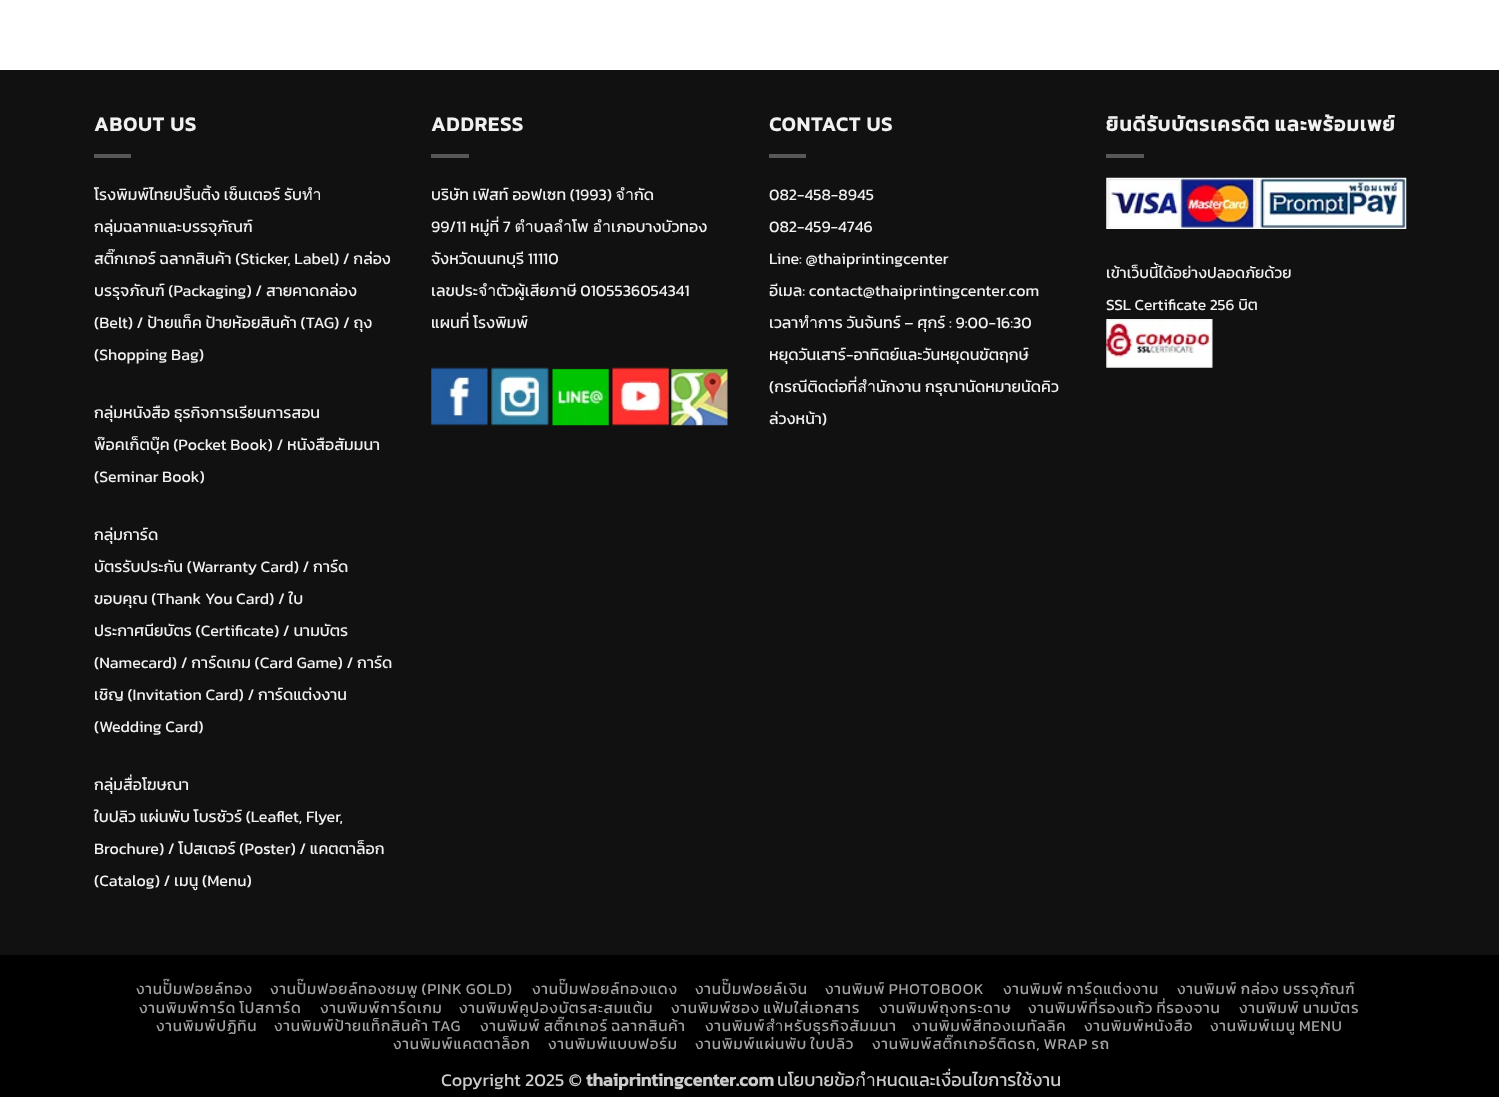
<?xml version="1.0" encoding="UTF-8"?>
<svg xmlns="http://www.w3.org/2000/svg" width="1499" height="1097">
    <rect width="100%" height="100%" fill="#FFFFFF"/>
    <rect x="0" y="70" width="1499" height="885" fill="#111111"/>
    <text x="94" y="131" font-family="Kanit" font-size="20" font-weight="700" letter-spacing="1" fill="#F1F1F1">ABOUT US</text>
    <rect x="94" y="154" width="37" height="4" fill="#585858"/>
    <text x="94" y="200" font-family="Kanit" font-size="16" fill="#F1F1F1">โรงพิมพ์ไทยปริ้นติ้ง เซ็นเตอร์ รับทำ</text>
    <text x="94" y="232" font-family="Kanit" font-size="16" fill="#F1F1F1">กลุ่มฉลากและบรรจุภัณฑ์</text>
    <text x="94" y="264" font-family="Kanit" font-size="16" fill="#F1F1F1">สติ๊กเกอร์ ฉลากสินค้า (Sticker, Label) / กล่อง</text>
    <text x="94" y="296" font-family="Kanit" font-size="16" fill="#F1F1F1">บรรุจภัณฑ์ (Packaging) / สายคาดกล่อง</text>
    <text x="94" y="328" font-family="Kanit" font-size="16" fill="#F1F1F1">(Belt) / ป้ายแท็ค ป้ายห้อยสินค้า (TAG) / ถุง</text>
    <text x="94" y="360" font-family="Kanit" font-size="16" fill="#F1F1F1">(Shopping Bag)</text>
    <text x="94" y="418" font-family="Kanit" font-size="16" fill="#F1F1F1">กลุ่มหนังสือ ธุรกิจการเรียนการสอน</text>
    <text x="94" y="450" font-family="Kanit" font-size="16" fill="#F1F1F1">พ๊อคเก็ตบุ๊ค (Pocket Book) / หนังสือสัมมนา</text>
    <text x="94" y="482" font-family="Kanit" font-size="16" fill="#F1F1F1">(Seminar Book)</text>
    <text x="94" y="540" font-family="Kanit" font-size="16" fill="#F1F1F1">กลุ่มการ์ด</text>
    <text x="94" y="572" font-family="Kanit" font-size="16" fill="#F1F1F1">บัตรรับประกัน (Warranty Card) / การ์ด</text>
    <text x="94" y="604" font-family="Kanit" font-size="16" fill="#F1F1F1">ขอบคุณ (Thank You Card) / ใบ</text>
    <text x="94" y="636" font-family="Kanit" font-size="16" fill="#F1F1F1">ประกาศนียบัตร (Certificate) / นามบัตร</text>
    <text x="94" y="668" font-family="Kanit" font-size="16" fill="#F1F1F1">(Namecard) / การ์ดเกม (Card Game) / การ์ด</text>
    <text x="94" y="700" font-family="Kanit" font-size="16" fill="#F1F1F1">เชิญ (Invitation Card) / การ์ดแต่งงาน</text>
    <text x="94" y="732" font-family="Kanit" font-size="16" fill="#F1F1F1">(Wedding Card)</text>
    <text x="94" y="790" font-family="Kanit" font-size="16" fill="#F1F1F1">กลุ่มสื่อโฆษณา</text>
    <text x="94" y="822" font-family="Kanit" font-size="16" fill="#F1F1F1">ใบปลิว แผ่นพับ โบรชัวร์ (Leaflet, Flyer,</text>
    <text x="94" y="854" font-family="Kanit" font-size="16" fill="#F1F1F1">Brochure) / โปสเตอร์ (Poster) / แคตตาล็อก</text>
    <text x="94" y="886" font-family="Kanit" font-size="16" fill="#F1F1F1">(Catalog) / เมนู (Menu)</text>
    <text x="431" y="131" font-family="Kanit" font-size="20" font-weight="700" letter-spacing="1" fill="#F1F1F1">ADDRESS</text>
    <rect x="431" y="154" width="38" height="4" fill="#585858"/>
    <text x="431" y="200" font-family="Kanit" font-size="16" fill="#F1F1F1">บริษัท เฟิสท์ ออฟเซท (1993) จำกัด</text>
    <text x="431" y="232" font-family="Kanit" font-size="16" fill="#F1F1F1">99/11 หมู่ที่ 7 ตำบลลำโพ อำเภอบางบัวทอง</text>
    <text x="431" y="264" font-family="Kanit" font-size="16" fill="#F1F1F1">จังหวัดนนทบุรี 11110</text>
    <text x="431" y="296" font-family="Kanit" font-size="16" fill="#F1F1F1">เลขประจำตัวผู้เสียภาษี 0105536054341</text>
    <text x="431" y="328" font-family="Kanit" font-size="16" fill="#F1F1F1">แผนที่ โรงพิมพ์</text>
    <image x="431" y="367" width="297" height="59" href="img_01.png"/>
    <text x="769" y="131" font-family="Kanit" font-size="20" font-weight="700" letter-spacing="1" fill="#F1F1F1">CONTACT US</text>
    <rect x="769" y="154" width="37" height="4" fill="#585858"/>
    <text x="769" y="200" font-family="Kanit" font-size="16" fill="#F1F1F1">082-458-8945</text>
    <text x="769" y="232" font-family="Kanit" font-size="16" fill="#F1F1F1">082-459-4746</text>
    <text x="769" y="264" font-family="Kanit" font-size="16" fill="#F1F1F1">Line: @thaiprintingcenter</text>
    <text x="769" y="296" font-family="Kanit" font-size="16" fill="#F1F1F1">อีเมล: contact@thaiprintingcenter.com</text>
    <text x="769" y="328" font-family="Kanit" font-size="16" fill="#F1F1F1">เวลาทำการ วันจ้นทร์ – ศุกร์ : 9:00-16:30</text>
    <text x="769" y="360" font-family="Kanit" font-size="16" fill="#F1F1F1">หยุดวันเสาร์-อาทิตย์และวันหยุดนขัตฤกษ์</text>
    <text x="769" y="392" font-family="Kanit" font-size="16" fill="#F1F1F1">(กรณีติดต่อที่สำนักงาน กรุณานัดหมายนัดคิว</text>
    <text x="769" y="424" font-family="Kanit" font-size="16" fill="#F1F1F1">ล่วงหน้า)</text>
    <text x="1106" y="131" word-spacing="-1" font-family="Kanit" font-size="20" font-weight="700" letter-spacing="1" fill="#F1F1F1">ยินดีรับบัตรเครดิต และพร้อมเพย์</text>
    <rect x="1106" y="154" width="38" height="4" fill="#585858"/>
    <image x="1106" y="177" width="301" height="52" href="img_02.png"/>
    <text x="1106" y="278" font-family="Kanit" font-size="15.6" fill="#F1F1F1">เข้าเว็บนี้ได้อย่างปลอดภัยด้วย</text>
    <text x="1106" y="310" font-family="Kanit" font-size="15.6" fill="#F1F1F1">SSL Certificate 256 บิต</text>
    <image x="1106" y="319" width="107" height="49" href="img_03.png"/>
    <rect x="0" y="955" width="1499" height="142" fill="#000000"/>
    <text x="136" y="994" font-family="Kanit" font-size="15.25" letter-spacing="0.75" fill="#A3A3A3">งานปั๊มฟอยล์ทอง</text>
    <text x="270" y="994" word-spacing="-1" font-family="Kanit" font-size="15.25" letter-spacing="0.75" fill="#A3A3A3">งานปั๊มฟอยล์ทองชมพู (PINK GOLD)</text>
    <text x="532" y="994" font-family="Kanit" font-size="15.25" letter-spacing="0.75" fill="#A3A3A3">งานปั๊มฟอยล์ทองแดง</text>
    <text x="695" y="994" font-family="Kanit" font-size="15.25" letter-spacing="0.75" fill="#A3A3A3">งานปั๊มฟอยล์เงิน</text>
    <text x="825" y="994" word-spacing="-1" font-family="Kanit" font-size="15.25" letter-spacing="0.75" fill="#A3A3A3">งานพิมพ์ PHOTOBOOK</text>
    <text x="1003" y="994" word-spacing="-1" font-family="Kanit" font-size="15.25" letter-spacing="0.75" fill="#A3A3A3">งานพิมพ์ การ์ดแต่งงาน</text>
    <text x="1177" y="994" word-spacing="-1" font-family="Kanit" font-size="15.25" letter-spacing="0.75" fill="#A3A3A3">งานพิมพ์ กล่อง บรรจุภัณฑ์</text>
    <text x="139" y="1013" word-spacing="-1" font-family="Kanit" font-size="15.25" letter-spacing="0.75" fill="#A3A3A3">งานพิมพ์การ์ด โปสการ์ด</text>
    <text x="320" y="1013" font-family="Kanit" font-size="15.25" letter-spacing="0.75" fill="#A3A3A3">งานพิมพ์การ์ดเกม</text>
    <text x="459" y="1013" font-family="Kanit" font-size="15.25" letter-spacing="0.75" fill="#A3A3A3">งานพิมพ์คูปองบัตรสะสมแต้ม</text>
    <text x="671" y="1013" word-spacing="-1" font-family="Kanit" font-size="15.25" letter-spacing="0.75" fill="#A3A3A3">งานพิมพ์ซอง แฟ้มใส่เอกสาร</text>
    <text x="879" y="1013" font-family="Kanit" font-size="15.25" letter-spacing="0.75" fill="#A3A3A3">งานพิมพ์ถุงกระดาษ</text>
    <text x="1028" y="1013" word-spacing="-1" font-family="Kanit" font-size="15.25" letter-spacing="0.75" fill="#A3A3A3">งานพิมพ์ที่รองแก้ว ที่รองจาน</text>
    <text x="1239" y="1013" word-spacing="-1" font-family="Kanit" font-size="15.25" letter-spacing="0.75" fill="#A3A3A3">งานพิมพ์ นามบัตร</text>
    <text x="156" y="1031" font-family="Kanit" font-size="15.25" letter-spacing="0.75" fill="#A3A3A3">งานพิมพ์ปฏิทิน</text>
    <text x="274" y="1031" word-spacing="-1" font-family="Kanit" font-size="15.25" letter-spacing="0.75" fill="#A3A3A3">งานพิมพ์ป้ายแท็กสินค้า TAG</text>
    <text x="480" y="1031" word-spacing="-1" font-family="Kanit" font-size="15.25" letter-spacing="0.75" fill="#A3A3A3">งานพิมพ์ สติ๊กเกอร์ ฉลากสินค้า</text>
    <text x="705" y="1031" font-family="Kanit" font-size="15.25" letter-spacing="0.75" fill="#A3A3A3">งานพิมพ์สำหรับธุรกิจสัมมนา</text>
    <text x="912" y="1031" font-family="Kanit" font-size="15.25" letter-spacing="0.75" fill="#A3A3A3">งานพิมพ์สีทองเมทัลลิค</text>
    <text x="1084" y="1031" font-family="Kanit" font-size="15.25" letter-spacing="0.75" fill="#A3A3A3">งานพิมพ์หนังสือ</text>
    <text x="1210" y="1031" word-spacing="-1" font-family="Kanit" font-size="15.25" letter-spacing="0.75" fill="#A3A3A3">งานพิมพ์เมนู MENU</text>
    <text x="393" y="1049" font-family="Kanit" font-size="15.25" letter-spacing="0.75" fill="#A3A3A3">งานพิมพ์แคตตาล็อก</text>
    <text x="548" y="1049" font-family="Kanit" font-size="15.25" letter-spacing="0.75" fill="#A3A3A3">งานพิมพ์แบบฟอร์ม</text>
    <text x="695" y="1049" word-spacing="-1" font-family="Kanit" font-size="15.25" letter-spacing="0.75" fill="#A3A3A3">งานพิมพ์แผ่นพับ ใบปลิว</text>
    <text x="872" y="1049" word-spacing="-1" font-family="Kanit" font-size="15.25" letter-spacing="0.75" fill="#A3A3A3">งานพิมพ์สติ๊กเกอร์ติดรถ, WRAP รถ</text>
    <text x="441" y="1086" font-family="Kanit" font-size="18" fill="#CCCCCC">Copyright 2025 ©</text>
    <text x="586" y="1086" font-family="Kanit" font-size="18" font-weight="700" fill="#CCCCCC">thaiprintingcenter.com</text>
    <text x="777" y="1086" font-family="Kanit" font-size="18" fill="#CCCCCC">นโยบายข้อกำหนดและเงื่อนไขการใช้งาน</text>
</svg>
